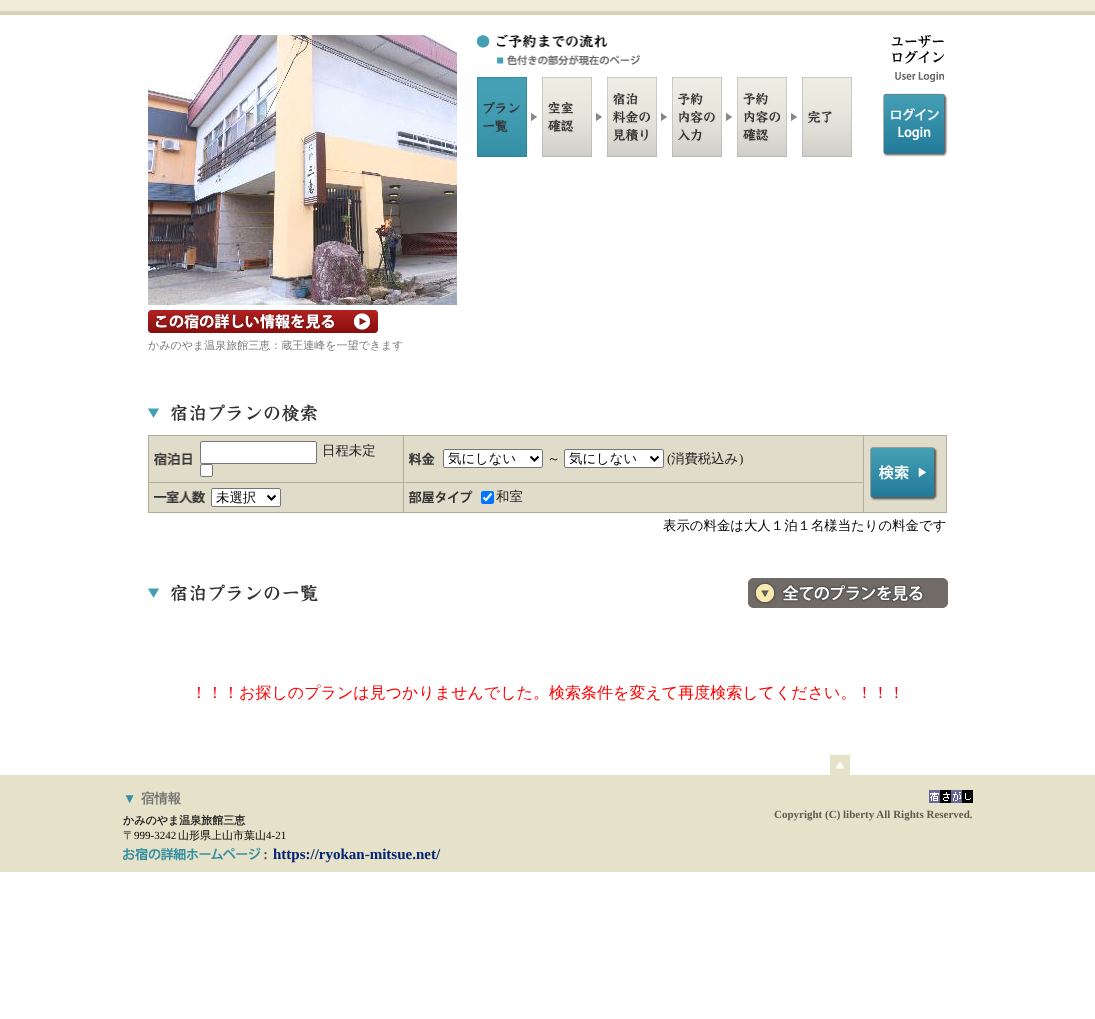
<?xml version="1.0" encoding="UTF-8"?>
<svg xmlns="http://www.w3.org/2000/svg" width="1095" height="1019">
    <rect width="100%" height="100%" fill="#FFFFFF"/>
    <image x="0" y="0" width="1095" height="15" href="img_01.png"/>
    <image x="477" y="35" width="163" height="30" href="img_02.png"/>
    <image x="477" y="77" width="60" height="80" href="img_03.png"/>
    <image x="542" y="77" width="60" height="80" href="img_04.png"/>
    <image x="607" y="77" width="60" height="80" href="img_05.png"/>
    <image x="672" y="77" width="60" height="80" href="img_06.png"/>
    <image x="737" y="77" width="60" height="80" href="img_07.png"/>
    <image x="802" y="77" width="50" height="80" href="img_08.png"/>
    <image x="891" y="35" width="54" height="47" href="img_09.png"/>
    <image x="854" y="93" width="94" height="64" href="img_10.png"/>
    <image x="148" y="35" width="309" height="270" href="img_11.png"/>
    <image x="148" y="310" width="230" height="23" href="img_12.png"/>
    <text x="148" y="349" font-family="WenQuanYi Zen Hei" font-size="11" font-weight="500" fill="#797979">かみのやま温泉旅館三恵：蔵王連峰を一望できます</text>
    <image x="148" y="404" width="169" height="18" href="img_13.png"/>
    <rect x="148" y="435" width="799" height="1" fill="#B2AE97"/>
    <rect x="148" y="435" width="1" height="78" fill="#B2AE97"/>
    <rect x="149" y="436" width="254" height="46" fill="#E0DCCA"/>
    <rect x="403" y="436" width="1" height="77" fill="#B2AE97"/>
    <rect x="149" y="482" width="255" height="1" fill="#B2AE97"/>
    <image x="154" y="452" width="38" height="14" href="img_14.png"/>
    <rect x="200.5" y="441.5" width="116" height="22" rx="1.5" fill="#FFFFFF" stroke="#767676"/>
    <text x="322" y="455" font-family="WenQuanYi Zen Hei" font-size="13.4" font-weight="500" fill="#222222">日程未定</text>
    <rect x="200.5" y="464.5" width="12" height="12" rx="1.5" fill="#FFFFFF" stroke="#767676"/>
    <rect x="404" y="436" width="459" height="46" fill="#E0DCCA"/>
    <rect x="863" y="436" width="1" height="77" fill="#B2AE97"/>
    <rect x="404" y="482" width="460" height="1" fill="#B2AE97"/>
    <image x="409" y="452" width="26" height="14" href="img_15.png"/>
    <rect x="443.5" y="449.5" width="99" height="18" rx="1.5" fill="#FFFFFF" stroke="#767676"/>
    <path d="M 530.5 456.5 L 534.5 460.5 L 538.5 456.5" fill="none" stroke="#000000" stroke-width="2"/>
    <text x="448" y="463" font-family="WenQuanYi Zen Hei" font-size="13.4" font-weight="500" fill="#000000">気にしない</text>
    <text x="547" y="463" font-family="WenQuanYi Zen Hei" font-size="13.4" font-weight="500" fill="#222222">～</text>
    <rect x="564.5" y="449.5" width="99" height="18" rx="1.5" fill="#FFFFFF" stroke="#767676"/>
    <path d="M 650.5 456.5 L 654.5 460.5 L 658.5 456.5" fill="none" stroke="#000000" stroke-width="2"/>
    <text x="569" y="463" font-family="WenQuanYi Zen Hei" font-size="13.4" font-weight="500" fill="#000000">気にしない</text>
    <text x="667" y="463" font-family="Liberation Serif" font-size="13.4" fill="#222222">(</text>
    <text x="671" y="463" font-family="WenQuanYi Zen Hei" font-size="13.4" font-weight="500" fill="#222222">消費税込み</text>
    <text x="739" y="463" font-family="Liberation Serif" font-size="13.4" fill="#222222">)</text>
    <rect x="864" y="436" width="82" height="76" fill="#E0DCCA"/>
    <rect x="946" y="436" width="1" height="77" fill="#B2AE97"/>
    <rect x="864" y="512" width="83" height="1" fill="#B2AE97"/>
    <image x="870" y="447" width="68" height="54" href="img_16.png"/>
    <rect x="149" y="483" width="254" height="29" fill="#E0DCCA"/>
    <rect x="149" y="512" width="715" height="1" fill="#B2AE97"/>
    <image x="154" y="490" width="51" height="14" href="img_17.png"/>
    <rect x="211.5" y="488.5" width="69" height="18" rx="1.5" fill="#FFFFFF" stroke="#767676"/>
    <path d="M 267.5 495.5 L 271.5 499.5 L 275.5 495.5" fill="none" stroke="#000000" stroke-width="2"/>
    <text x="216" y="502" font-family="WenQuanYi Zen Hei" font-size="13.4" font-weight="500" fill="#000000">未選択</text>
    <rect x="404" y="483" width="459" height="29" fill="#E0DCCA"/>
    <image x="409" y="490" width="64" height="14" href="img_18.png"/>
    <rect x="481" y="491" width="13" height="13" rx="2" fill="#0075FF"/>
    <path d="M 483.5 497.5 L 486 500 L 491.5 493.5" fill="none" stroke="#FFFFFF" stroke-width="2.1"/>
    <text x="496" y="501" font-family="WenQuanYi Zen Hei" font-size="13.4" font-weight="500" fill="#222222">和室</text>
    <text x="663" y="530" font-family="WenQuanYi Zen Hei" font-size="13.4" font-weight="500" fill="#000000">表示の料金は大人１泊１名様当たりの料金です</text>
    <image x="148" y="584" width="170" height="18" href="img_19.png"/>
    <image x="748" y="578" width="200" height="30" href="img_20.png"/>
    <text x="191" y="698" font-family="WenQuanYi Zen Hei" font-size="16" font-weight="500" fill="#FF0000">！！！お探しのプランは見つかりませんでした。検索条件を変えて再度検索してください。！！！</text>
    <image x="830" y="755" width="20" height="20" href="img_21.png"/>
    <rect x="0" y="775" width="1095" height="97" fill="#E6E2C9"/>
    <text x="123" y="803" font-family="Liberation Serif" font-size="13.4" font-weight="700" fill="#348EA3">▼</text>
    <text x="141" y="803" font-family="WenQuanYi Zen Hei" font-size="13.4" font-weight="700" fill="#717171">宿情報</text>
    <text x="123" y="824" font-family="WenQuanYi Zen Hei" font-size="11" font-weight="700" fill="#222222">かみのやま温泉旅館三恵</text>
    <text x="123" y="839" font-family="WenQuanYi Zen Hei" font-size="11" font-weight="500" fill="#000000">〒</text>
    <text x="134" y="839" font-family="Liberation Serif" font-size="11" fill="#000000">999-3242</text>
    <text x="178" y="839" font-family="WenQuanYi Zen Hei" font-size="11" font-weight="500" fill="#000000">山形県上山市葉山</text>
    <text x="266" y="839" font-family="Liberation Serif" font-size="11" fill="#000000">4-21</text>
    <image x="123" y="847" width="144" height="14" href="img_22.png"/>
    <text x="273" y="859" font-family="Liberation Serif" font-size="15" font-weight="700" fill="#052275">https://ryokan-mitsue.net/</text>
    <image x="929" y="790" width="44" height="13" href="img_23.png"/>
    <text x="774" y="818" font-family="Liberation Serif" font-size="11" font-weight="700" fill="#635A4F">Copyright (C) liberty All Rights Reserved.</text>
</svg>
